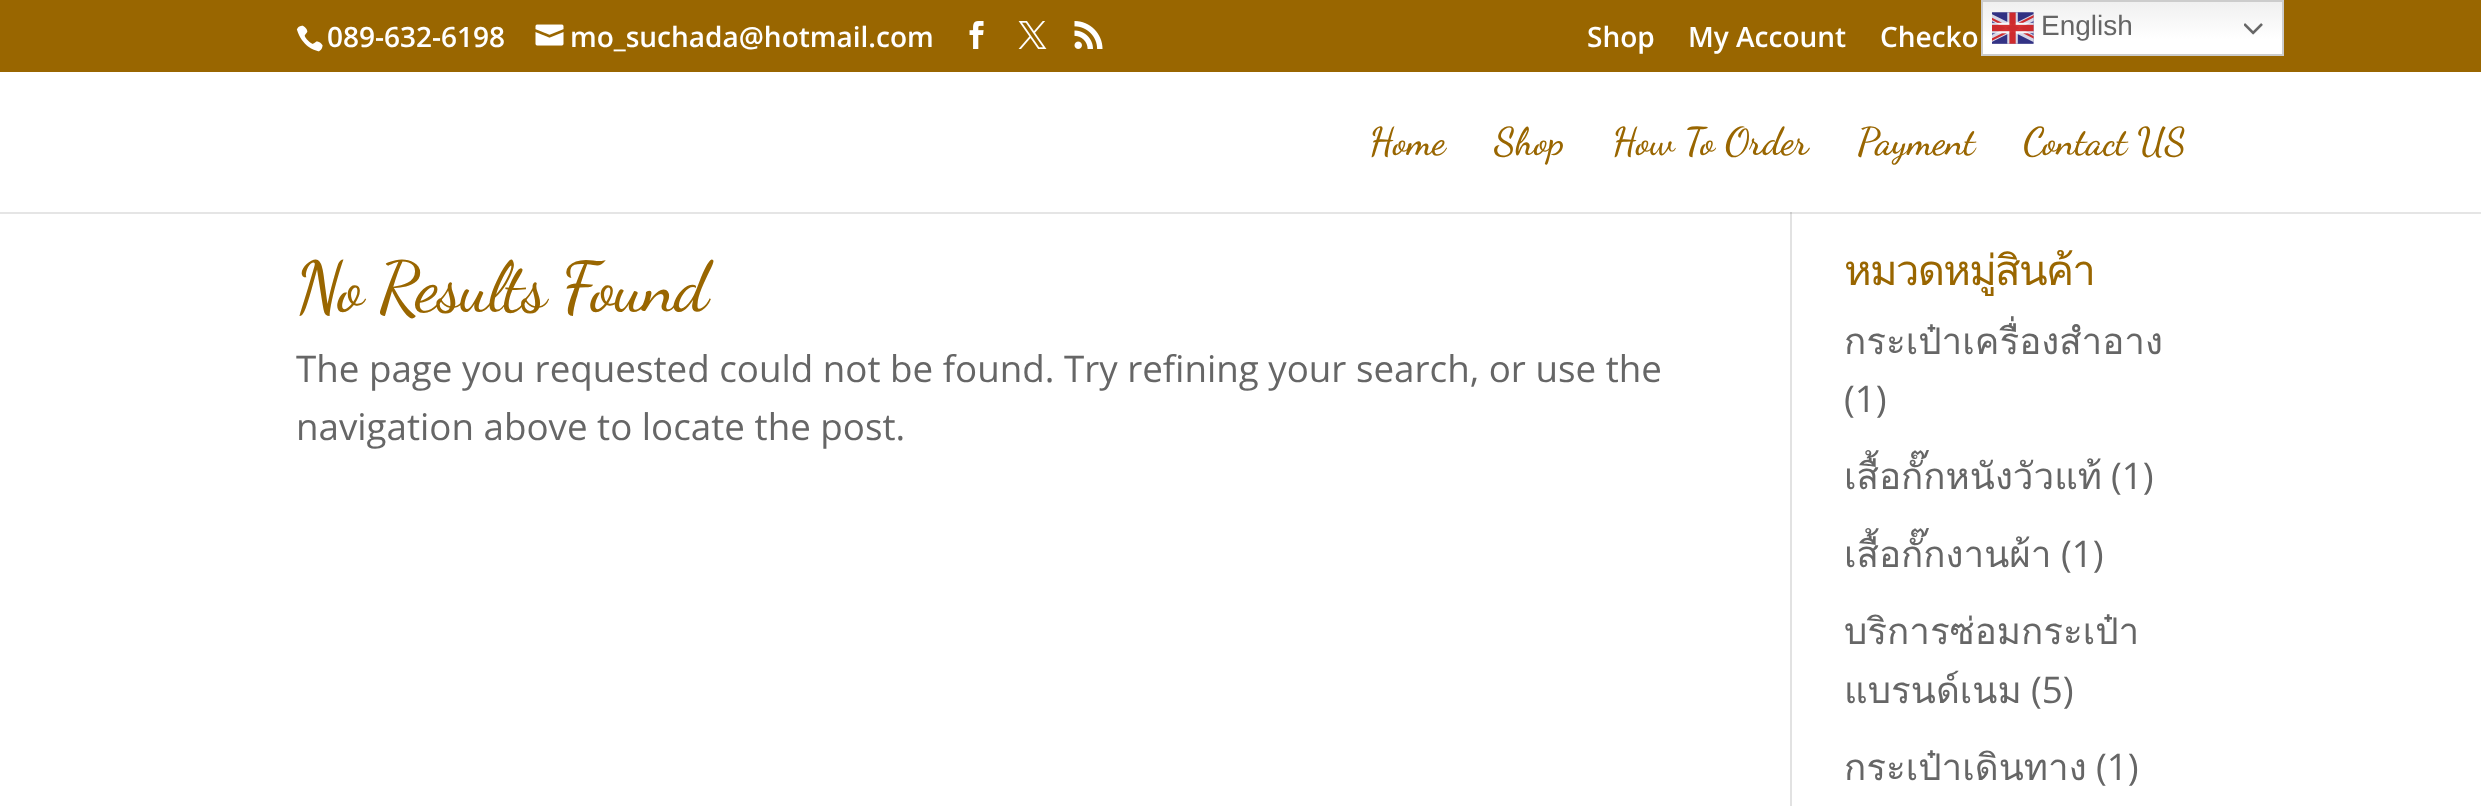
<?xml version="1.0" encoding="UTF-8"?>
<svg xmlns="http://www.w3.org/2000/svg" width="2481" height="806">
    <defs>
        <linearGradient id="g1" gradientUnits="userSpaceOnUse" x1="2132" y1="0" x2="2132" y2="56"><stop offset="0" stop-color="#EFEFEF"/><stop offset="0.7" stop-color="#FFFFFF"/></linearGradient>
    </defs>
    <rect width="100%" height="100%" fill="#FFFFFF"/>
    <rect x="0" y="0" width="2481" height="72" fill="#996600"/>
    <rect x="1983" y="2" width="299" height="52" fill="url(#g1)"/>
    <rect x="1982" y="1" width="301" height="54" fill="none" stroke="#CCCCCC" stroke-width="2"/>
    <image x="1992" y="12" width="42" height="32" href="img_01.png"/>
    <text x="2041" y="35" font-family="Liberation Sans" font-size="28" fill="#666666">English</text>
    <image x="2244" y="23" width="19" height="12" href="img_02.png"/>
    <image x="296" y="25" width="27" height="27" href="img_03.png"/>
    <text x="327" y="47" font-family="Open Sans" font-size="28" font-weight="600" fill="#FFFFFF">089-632-6198</text>
    <image x="535" y="24" width="29" height="22" href="img_04.png"/>
    <text x="570" y="47" font-family="Open Sans" font-size="28" font-weight="600" fill="#FFFFFF">mo_suchada@hotmail.com</text>
    <image x="969" y="21" width="15" height="28" href="img_05.png"/>
    <image x="1018" y="21" width="29" height="28" href="img_06.png"/>
    <image x="1074" y="21" width="29" height="28" href="img_07.png"/>
    <text x="1587" y="47" font-family="Open Sans" font-size="28" font-weight="600" fill="#FFFFFF">Shop</text>
    <text x="1688" y="47" font-family="Open Sans" font-size="28" font-weight="600" fill="#FFFFFF">My Account</text>
    <text x="1880" y="47" font-family="Open Sans" font-size="28" font-weight="600" fill="#FFFFFF">Checko</text>
    <rect x="1790" y="212" width="2" height="594" fill="#E2E2E2"/>
    <path d="M 0 212 V 214 H 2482 V 74 V 212 Z" fill="#000000" fill-opacity="0.1"/>
    <text x="1369" y="154" font-family="Dancing Script" font-size="38.5" font-weight="600" fill="#996600">Home</text>
    <text x="1494" y="154" font-family="Dancing Script" font-size="38.5" font-weight="600" fill="#996600">Shop</text>
    <text x="1612" y="154" font-family="Dancing Script" font-size="38.5" font-weight="600" fill="#996600">How To Order</text>
    <text x="1857" y="154" font-family="Dancing Script" font-size="38.5" font-weight="600" fill="#996600">Payment</text>
    <text x="2023" y="154" font-family="Dancing Script" font-size="38.5" font-weight="600" fill="#996600">Contact US</text>
    <text x="296" y="310" font-family="Dancing Script" font-size="70" font-weight="500" letter-spacing="-1.75" fill="#996600">No Results Found</text>
    <text font-family="Open Sans" font-size="36.75" fill="#666666">
        <tspan x="296" y="382">The page you requested could not be found. Try refining your search, or use the</tspan>
        <tspan x="296" y="440">navigation above to locate the post.</tspan>
    </text>
    <text x="1844" y="285" font-family="Loma" font-size="42" letter-spacing="-1.75" fill="#996600">หมวดหมู่สินค้า</text>
    <text x="1844" y="354" font-family="Loma" font-size="36.75" fill="#666666">กระเป๋าเครื่องสำอาง</text>
    <text x="1844" y="412" font-family="Open Sans" font-size="36.75" fill="#666666">(1)</text>
    <text x="1844" y="489" font-family="Loma" font-size="36.75" fill="#666666">เสื้อกั๊กหนังวัวแท้</text>
    <text x="2111" y="489" font-family="Open Sans" font-size="36.75" fill="#666666">(1)</text>
    <text x="1844" y="567" font-family="Loma" font-size="36.75" fill="#666666">เสื้อกั๊กงานผ้า</text>
    <text x="2061" y="567" font-family="Open Sans" font-size="36.75" fill="#666666">(1)</text>
    <text font-family="Loma" font-size="36.75" fill="#666666">
        <tspan x="1844" y="644">บริการซ่อมกระเป๋า</tspan>
        <tspan x="1844" y="703">แบรนด์เนม</tspan>
    </text>
    <text x="2031" y="703" font-family="Open Sans" font-size="36.75" fill="#666666">(5)</text>
    <text x="1844" y="780" font-family="Loma" font-size="36.75" fill="#666666">กระเป๋าเดินทาง</text>
    <text x="2096" y="780" font-family="Open Sans" font-size="36.75" fill="#666666">(1)</text>
</svg>
